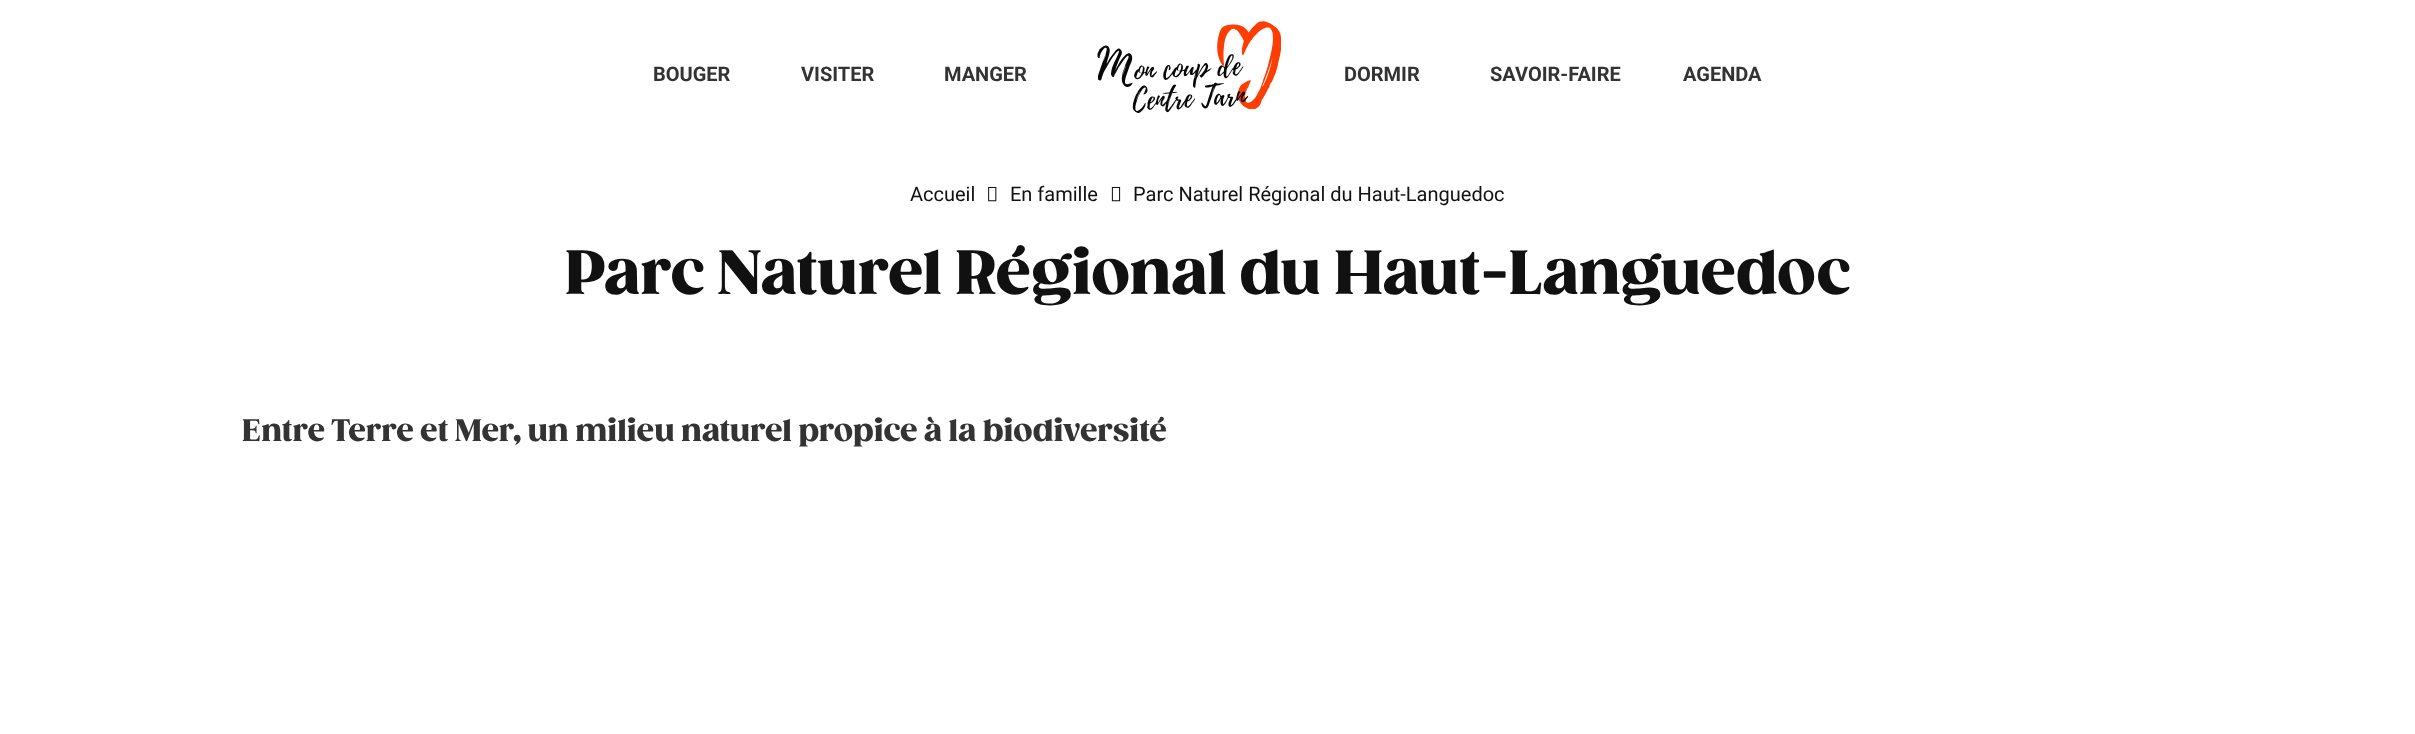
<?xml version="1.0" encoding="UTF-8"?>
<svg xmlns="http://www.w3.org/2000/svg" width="2415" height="734">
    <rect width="100%" height="100%" fill="#FFFFFF"/>
    <text x="653" y="81" font-family="Roboto" font-size="20" font-weight="700" fill="#333333">BOUGER</text>
    <text x="801" y="81" font-family="Roboto" font-size="20" font-weight="700" fill="#333333">VISITER</text>
    <text x="944" y="81" font-family="Roboto" font-size="20" font-weight="700" fill="#333333">MANGER</text>
    <image x="1097" y="21" width="185" height="92" href="img_01.png"/>
    <text x="1344" y="81" font-family="Roboto" font-size="20" font-weight="700" fill="#333333">DORMIR</text>
    <text x="1490" y="81" font-family="Roboto" font-size="20" font-weight="700" fill="#333333">SAVOIR-FAIRE</text>
    <text x="1683" y="81" font-family="Roboto" font-size="20" font-weight="700" fill="#333333">AGENDA</text>
    <text x="910" y="201" font-family="Roboto" font-size="20" fill="#111111">Accueil</text>
    <image x="988" y="186" width="9" height="16" href="img_02.png"/>
    <text x="1010" y="201" font-family="Roboto" font-size="20" fill="#111111">En famille</text>
    <image x="1111" y="186" width="10" height="16" href="img_03.png"/>
    <text x="1133" y="201" font-family="Roboto" font-size="20" fill="#111111">Parc Naturel Régional du Haut-Languedoc</text>
    <text x="565" y="294" font-family="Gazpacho" font-size="60.4" font-weight="900" fill="#111111">Parc Naturel Régional du Haut-Languedoc</text>
    <text x="242" y="441" font-family="Gazpacho" font-size="30" font-weight="900" fill="#333333">Entre Terre et Mer, un milieu naturel propice à la biodiversité</text>
</svg>
